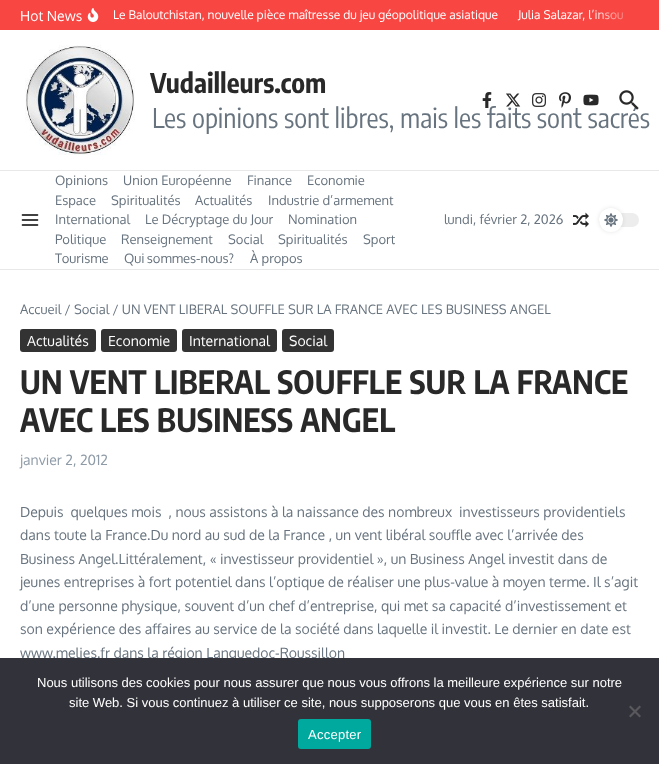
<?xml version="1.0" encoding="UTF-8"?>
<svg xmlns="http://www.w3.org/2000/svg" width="659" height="764">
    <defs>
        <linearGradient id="g1" gradientUnits="userSpaceOnUse" x1="589" y1="15" x2="639" y2="15"><stop offset="0" stop-color="#F84643" stop-opacity="0"/><stop offset="1" stop-color="#F84643"/></linearGradient>
        <filter id="blur1" x="-50%" y="-200%" width="200%" height="500%"><feGaussianBlur stdDeviation="2"/></filter>
    </defs>
    <rect width="100%" height="100%" fill="#FFFFFF"/>
    <rect x="0" y="0" width="659" height="30" fill="#F84643"/>
    <text x="20" y="21" font-family="Oxygen" font-size="14" fill="#FFFFFF">Hot News</text>
    <image x="87" y="8" width="12" height="14" href="img_01.png"/>
    <text x="113" y="19" font-family="Oxygen" font-size="12" fill="#FFFFFF">Le Baloutchistan, nouvelle pièce maîtresse du jeu géopolitique asiatique</text>
    <text x="518" y="19" font-family="Oxygen" font-size="12" fill="#FFFFFF">Julia Salazar, l’insou</text>
    <rect x="590" y="9" width="34" height="11" fill="url(#g1)"/>
    <rect x="0" y="170" width="659" height="1" fill="#E8E8E8"/>
    <image x="25" y="45" width="110" height="110" href="img_02.png"/>
    <text x="150" y="93" font-family="Encode Sans Condensed" font-size="27" font-weight="700" fill="#292929">Vudailleurs.com</text>
    <text x="152" y="128" font-family="Encode Sans Condensed" font-size="27" fill="#67737E">Les opinions sont libres, mais les faits sont sacrés</text>
    <image x="482" y="92" width="10" height="16" href="img_03.png"/>
    <image x="506" y="93" width="15" height="14" href="img_04.png"/>
    <image x="532" y="93" width="14" height="14" href="img_05.png"/>
    <image x="559" y="92" width="12" height="16" href="img_06.png"/>
    <image x="583" y="94" width="16" height="12" href="img_07.png"/>
    <image x="619" y="90" width="20" height="20" href="img_08.png"/>
    <rect x="0" y="269" width="659" height="1" fill="#E8E8E8"/>
    <image x="21" y="214" width="18" height="12" href="img_09.png"/>
    <text x="55" y="185" font-family="Oxygen" font-size="13" fill="#67737E">Opinions</text>
    <text x="123" y="185" font-family="Oxygen" font-size="13" fill="#67737E">Union Européenne</text>
    <text x="247" y="185" font-family="Oxygen" font-size="13" fill="#67737E">Finance</text>
    <text x="307" y="185" font-family="Oxygen" font-size="13" fill="#67737E">Economie</text>
    <text x="55" y="205" font-family="Oxygen" font-size="13" fill="#67737E">Espace</text>
    <text x="111" y="205" font-family="Oxygen" font-size="13" fill="#67737E">Spiritualités</text>
    <text x="195" y="205" font-family="Oxygen" font-size="13" fill="#67737E">Actualités</text>
    <text x="268" y="205" font-family="Oxygen" font-size="13" fill="#67737E">Industrie d’armement</text>
    <text x="55" y="224" font-family="Oxygen" font-size="13" fill="#67737E">International</text>
    <text x="145" y="224" font-family="Oxygen" font-size="13" fill="#67737E">Le Décryptage du Jour</text>
    <text x="288" y="224" font-family="Oxygen" font-size="13" fill="#67737E">Nomination</text>
    <text x="55" y="244" font-family="Oxygen" font-size="13" fill="#67737E">Politique</text>
    <text x="121" y="244" font-family="Oxygen" font-size="13" fill="#67737E">Renseignement</text>
    <text x="228" y="244" font-family="Oxygen" font-size="13" fill="#67737E">Social</text>
    <text x="278" y="244" font-family="Oxygen" font-size="13" fill="#67737E">Spiritualités</text>
    <text x="363" y="244" font-family="Oxygen" font-size="13" fill="#67737E">Sport</text>
    <text x="55" y="263" font-family="Oxygen" font-size="13" fill="#67737E">Tourisme</text>
    <text x="124" y="263" word-spacing="-1" font-family="Oxygen" font-size="13" fill="#67737E">Qui sommes‑nous?</text>
    <text x="250" y="263" font-family="Oxygen" font-size="13" fill="#67737E">À propos</text>
    <text x="444" y="224" font-family="Oxygen" font-size="13" fill="#67737E">lundi, février 2, 2026</text>
    <image x="573" y="212" width="16" height="16" href="img_10.png"/>
    <rect x="599" y="213" width="40" height="14" rx="7" fill="#EDEDED"/>
    <rect x="599" y="208" width="24" height="24" rx="12" fill="#000000" fill-opacity="0.1" filter="url(#blur1)"/>
    <circle cx="611" cy="220" r="12" fill="#FFFFFF"/>
    <image x="604" y="213" width="14" height="14" href="img_11.png"/>
    <text x="20" y="314" font-family="Oxygen" font-size="13" fill="#67737E">Accueil / Social / UN VENT LIBERAL SOUFFLE SUR LA FRANCE AVEC LES BUSINESS ANGEL</text>
    <rect x="20" y="329" width="76" height="23" rx="3" fill="#333333"/>
    <text x="27" y="346" font-family="Oxygen" font-size="14" fill="#FFFFFF">Actualités</text>
    <rect x="101" y="329" width="76" height="23" rx="3" fill="#333333"/>
    <text x="108" y="346" font-family="Oxygen" font-size="14" fill="#FFFFFF">Economie</text>
    <rect x="182" y="329" width="95" height="23" rx="3" fill="#333333"/>
    <text x="189" y="346" font-family="Oxygen" font-size="14" fill="#FFFFFF">International</text>
    <rect x="282" y="329" width="52" height="23" rx="3" fill="#333333"/>
    <text x="289" y="346" font-family="Oxygen" font-size="14" fill="#FFFFFF">Social</text>
    <text font-family="Encode Sans Condensed" font-size="32" font-weight="700" letter-spacing="0.2" fill="#292929">
        <tspan x="20" y="394">UN VENT LIBERAL SOUFFLE SUR LA FRANCE</tspan>
        <tspan x="20" y="432">AVEC LES BUSINESS ANGEL</tspan>
    </text>
    <text x="20" y="465" font-family="Oxygen" font-size="14" fill="#8E9BA7">janvier 2, 2012</text>
    <text font-family="Oxygen" font-size="14" fill="#67737E" xml:space="preserve"><tspan x="20" y="517">Depuis  quelques mois  , nous assistons à la naissance des nombreux  investisseurs providentiels</tspan><tspan x="20" y="540">dans toute la France.Du nord au sud de la France , un vent libéral souffle avec l’arrivée des</tspan><tspan x="20" y="564">Business Angel.Littéralement, « investisseur providentiel », un Business Angel investit dans de</tspan><tspan x="20" y="587">jeunes entreprises à fort potentiel dans l’optique de réaliser une plus-value à moyen terme. Il s’agit</tspan><tspan x="20" y="611">d’une personne physique, souvent d’un chef d’entreprise, qui met sa capacité d’investissement et</tspan><tspan x="20" y="634">son expérience des affaires au service de la société dans laquelle il investit. Le dernier en date est</tspan><tspan x="20" y="658">www.melies.fr dans la région Languedoc-Roussillon</tspan></text>
    <rect x="0" y="658" width="659" height="106" fill="#32323A"/>
    <text x="37" y="687" font-family="Liberation Sans" font-size="13" fill="#FFFFFF">Nous utilisons des cookies pour nous assurer que nous vous offrons la meilleure expérience sur notre</text>
    <text x="69" y="707" font-family="Liberation Sans" font-size="13" fill="#FFFFFF">site Web. Si vous continuez à utiliser ce site, nous supposerons que vous en êtes satisfait.</text>
    <path d="M 639.5 705.5 L 641 707 L 630.5 717.5 L 629 716 Z" fill="#59595D"/>
    <path d="M 629 707 L 630.5 705.5 L 641 716 L 639.5 717.5 Z" fill="#59595D"/>
    <rect x="298" y="719" width="73" height="30" rx="3" fill="#00A99D"/>
    <text x="308" y="739" font-family="Liberation Sans" font-size="13" letter-spacing="0.25" fill="#FFFFFF">Accepter</text>
</svg>
